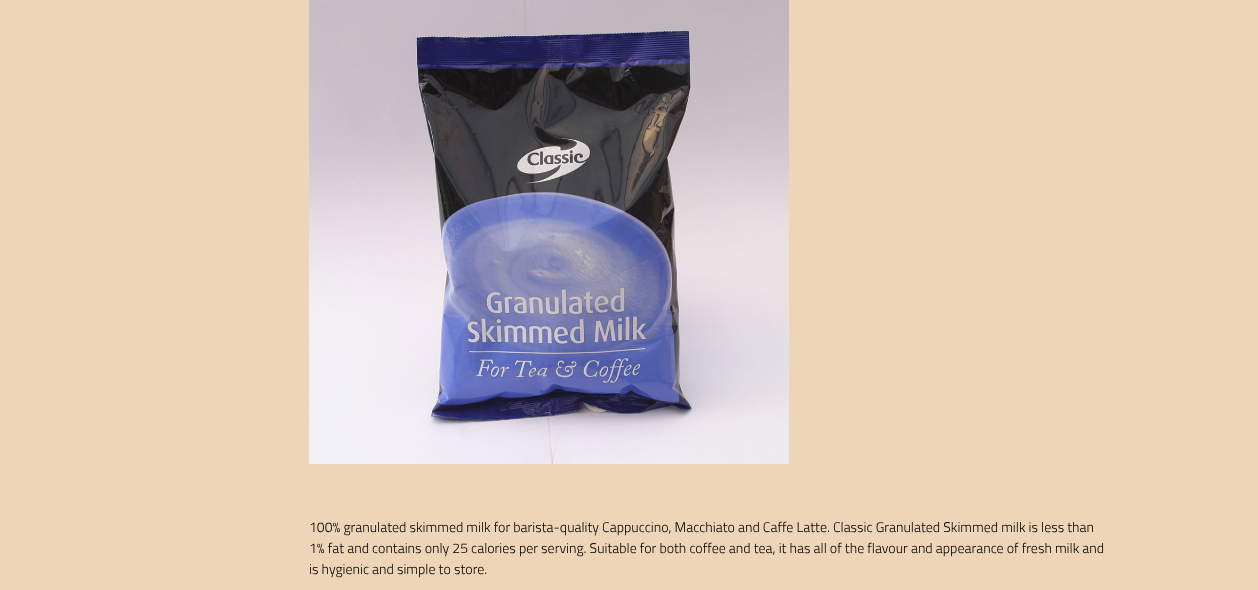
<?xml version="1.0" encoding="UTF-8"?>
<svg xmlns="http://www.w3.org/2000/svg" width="1258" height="590">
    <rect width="100%" height="100%" fill="#EED5B7"/>
    <image x="309" y="0" width="480" height="464" href="img_01.png"/>
    <text font-family="Titillium Web" font-size="14" font-weight="300" fill="#000000">
        <tspan x="309" y="532">100% granulated skimmed milk for barista-quality Cappuccino, Macchiato and Caffe Latte. Classic Granulated Skimmed milk is less than</tspan>
        <tspan x="309" y="553">1% fat and contains only 25 calories per serving. Suitable for both coffee and tea, it has all of the flavour and appearance of fresh milk and</tspan>
        <tspan x="309" y="574">is hygienic and simple to store.</tspan>
    </text>
</svg>
